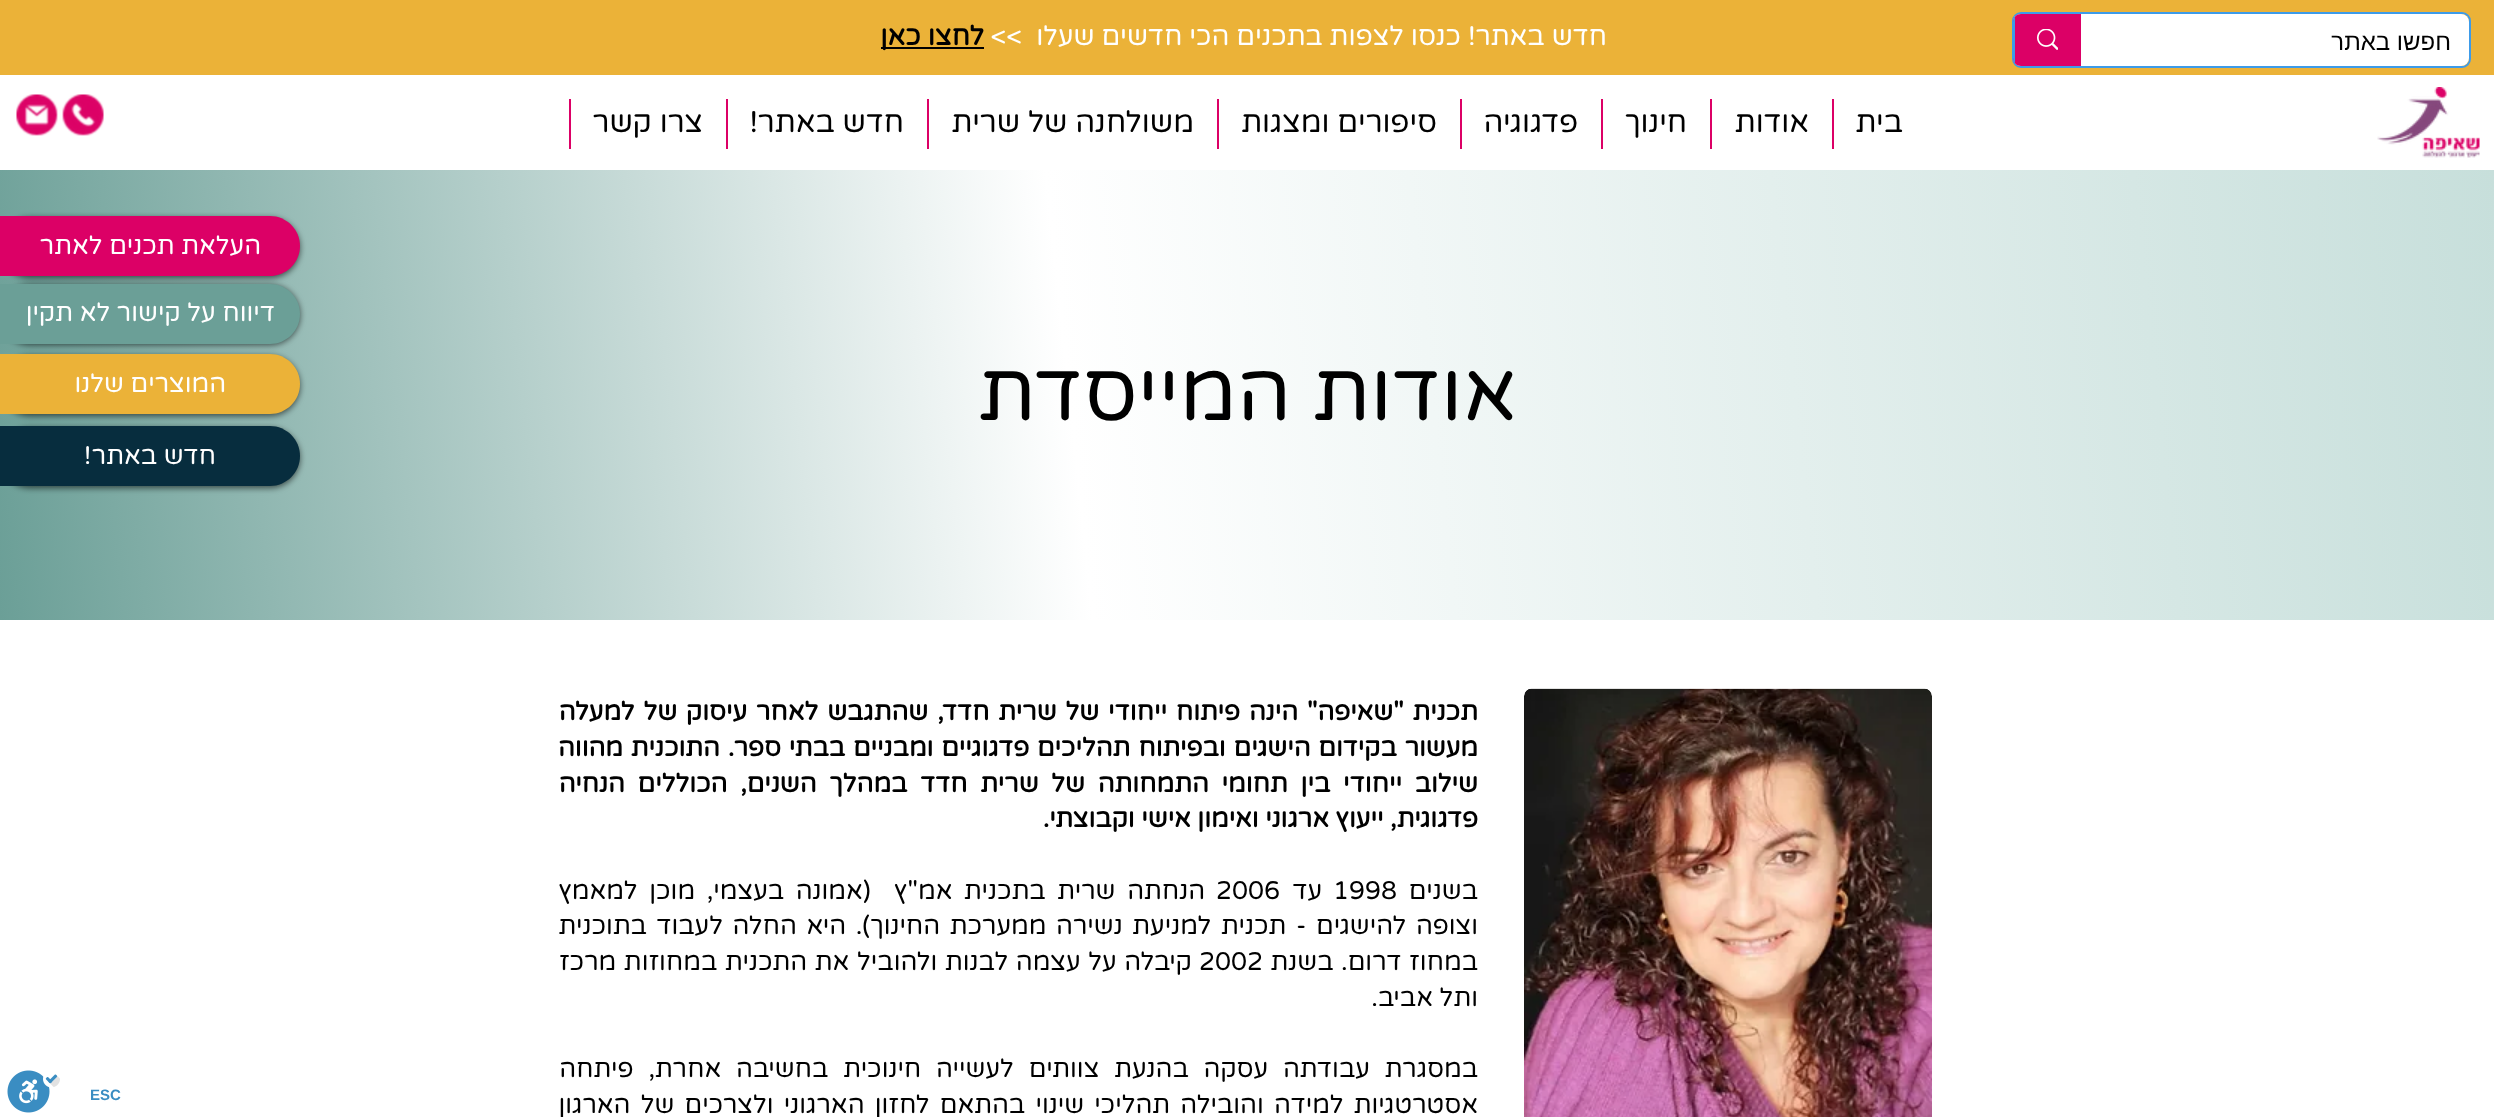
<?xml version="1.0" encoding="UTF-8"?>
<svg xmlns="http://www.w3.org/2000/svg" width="2494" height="1117">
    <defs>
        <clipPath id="clip1"><rect x="2013" y="14" width="456" height="52" rx="8"/></clipPath>
        <linearGradient id="g1" gradientUnits="userSpaceOnUse" x1="-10" y1="527" x2="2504" y2="262"><stop offset="0" stop-color="#6B9F97"/><stop offset="0.43" stop-color="#FFFFFF"/><stop offset="1" stop-color="#C7DFDB"/></linearGradient>
        <filter id="blur1" x="-50%" y="-200%" width="200%" height="500%"><feGaussianBlur stdDeviation="3"/></filter>
    </defs>
    <rect width="100%" height="100%" fill="#FFFFFF"/>
    <rect x="0" y="0" width="2494" height="75" fill="#EBB238"/>
    <rect x="2013" y="13" width="457" height="54" rx="8" fill="none" stroke="#3D9BE9" stroke-width="2"/>
    <rect x="2013" y="14" width="456" height="52" rx="8" fill="#FFFFFF"/>
    <text x="2451" y="50" font-family="Liberation Sans" font-size="24" direction="rtl" fill="#000000">חפשו באתר</text>
    <path d="M 2021 14 H 2081 V 66 H 2021 C 2016.5 66 2013 62.5 2013 58 V 22 C 2013 17.5 2016.5 14 2021 14 Z" fill="#DC0066"/>
    <g clip-path="url(#clip1)">
        <rect x="2013" y="14" width="2" height="52" fill="#3D9BE9"/>
    </g>
    <image x="2037" y="29" width="21" height="21" href="img_01.png"/>
    <image x="2377" y="87" width="103" height="71" href="img_02.png"/>
    <text x="1607" y="45" font-family="Varela Round" font-size="27" direction="rtl" fill="#FFFFFF" xml:space="preserve">חדש באתר! כנסו לצפות בתכנים הכי חדשים שעלו  &gt;&gt;</text>
    <rect x="881" y="47" width="103" height="2" fill="#000000"/>
    <text x="984" y="45" font-family="Varela Round" font-size="27" font-weight="700" direction="rtl" fill="#000000">לחצו כאן</text>
    <rect x="1832" y="99" width="2" height="50" fill="#DC0066"/>
    <text x="1903" y="132" font-family="Varela Round" font-size="30" direction="rtl" fill="#000000">בית</text>
    <rect x="1710" y="99" width="2" height="50" fill="#DC0066"/>
    <text x="1809" y="132" font-family="Varela Round" font-size="30" direction="rtl" fill="#000000">אודות</text>
    <rect x="1601" y="99" width="2" height="50" fill="#DC0066"/>
    <text x="1687" y="132" font-family="Varela Round" font-size="30" direction="rtl" fill="#000000">חינוך</text>
    <rect x="1460" y="99" width="2" height="50" fill="#DC0066"/>
    <text x="1578" y="132" font-family="Varela Round" font-size="30" direction="rtl" fill="#000000">פדגוגיה</text>
    <rect x="1217" y="99" width="2" height="50" fill="#DC0066"/>
    <text x="1437" y="132" font-family="Varela Round" font-size="30" direction="rtl" fill="#000000">סיפורים ומצגות</text>
    <rect x="927" y="99" width="2" height="50" fill="#DC0066"/>
    <text x="1194" y="132" font-family="Varela Round" font-size="30" direction="rtl" fill="#000000">משולחנה של שרית</text>
    <rect x="726" y="99" width="2" height="50" fill="#DC0066"/>
    <text x="904" y="132" font-family="Varela Round" font-size="30" direction="rtl" fill="#000000">חדש באתר!</text>
    <rect x="569" y="99" width="2" height="50" fill="#DC0066"/>
    <text x="703" y="132" font-family="Varela Round" font-size="30" direction="rtl" fill="#000000">צרו קשר</text>
    <rect x="0" y="170" width="2494" height="450" fill="url(#g1)"/>
    <text x="1517" y="420" font-family="Varela Round" font-size="82.5" direction="rtl" fill="#000000">אודות המייסדת</text>
    <image x="1524" y="688" width="408" height="429" href="img_03.png"/>
    <text font-family="Varela Round" font-size="25.5" font-weight="700" direction="rtl" fill="#000000">
        <tspan x="1478" y="720" word-spacing="2.25">תכנית "שאיפה" הינה פיתוח ייחודי של שרית חדד, שהתגבש לאחר עיסוק של למעלה</tspan>
        <tspan x="1478" y="756" word-spacing="1.25">מעשור בקידום הישגים ובפיתוח תהליכים פדגוגיים ומבניים בבתי ספר. התוכנית מהווה</tspan>
        <tspan x="1478" y="792" word-spacing="6.1">שילוב ייחודי בין תחומי התמחותה של שרית חדד במהלך השנים, הכוללים הנחיה</tspan>
        <tspan x="1478" y="827">פדגוגית, ייעוץ ארגוני ואימון אישי וקבוצתי.</tspan>
    </text>
    <text x="1478" y="899" font-family="Varela Round" font-size="25.5" direction="rtl" fill="#000000">בשנים</text>
    <text x="1333" y="899" font-family="Varela Round" font-size="25.5" fill="#000000">1998</text>
    <text x="1322" y="899" font-family="Varela Round" font-size="25.5" direction="rtl" fill="#000000">עד</text>
    <text x="1216" y="899" font-family="Varela Round" font-size="25.5" fill="#000000">2006</text>
    <text x="1205" y="899" word-spacing="5" font-family="Varela Round" font-size="25.5" direction="rtl" fill="#000000" xml:space="preserve">הנחתה שרית בתכנית אמ"ץ  (אמונה בעצמי, מוכן למאמץ</text>
    <text font-family="Varela Round" font-size="25.5" direction="rtl" fill="#000000">
        <tspan x="1478" y="934" word-spacing="3">וצופה להישגים - תכנית למניעת נשירה ממערכת החינוך). היא החלה לעבוד בתוכנית</tspan>
        <tspan x="1478" y="970" word-spacing="1">במחוז דרום. בשנת</tspan>
    </text>
    <text x="1199" y="970" font-family="Varela Round" font-size="25.5" fill="#000000">2002</text>
    <text x="1192" y="970" word-spacing="1" font-family="Varela Round" font-size="25.5" direction="rtl" fill="#000000">קיבלה על עצמה לבנות ולהוביל את התכנית במחוזות מרכז</text>
    <text x="1478" y="1006" font-family="Varela Round" font-size="25.5" direction="rtl" fill="#000000">ותל אביב.</text>
    <text font-family="Varela Round" font-size="25.5" direction="rtl" fill="#000000">
        <tspan x="1478" y="1077" word-spacing="8.25">במסגרת עבודתה עסקה בהנעת צוותים לעשייה חינוכית בחשיבה אחרת, פיתחה</tspan>
        <tspan x="1478" y="1113" word-spacing="3.6">אסטרטגיות למידה והובילה תהליכי שינוי בהתאם לחזון הארגוני ולצרכים של הארגון</tspan>
    </text>
    <image x="62" y="94" width="42" height="42" href="img_04.png"/>
    <image x="16" y="94" width="42" height="42" href="img_05.png"/>
    <rect x="0" y="218" width="300" height="60" rx="30" fill="#000000" fill-opacity="0.6" filter="url(#blur1)"/>
    <path d="M 0 216 H 270 C 286.5 216 300 229.5 300 246 C 300 262.5 286.5 276 270 276 H 0 Z" fill="#DC0066"/>
    <text x="261" y="254" font-family="Varela Round" font-size="25.5" direction="rtl" fill="#FFFFFF">העלאת תכנים לאתר</text>
    <rect x="0" y="285" width="300" height="60" rx="30" fill="#000000" fill-opacity="0.6" filter="url(#blur1)"/>
    <path d="M 0 284 H 270 C 286.5 284 300 297.5 300 314 C 300 330.5 286.5 344 270 344 H 0 Z" fill="#6B9F97"/>
    <text x="275" y="321" font-family="Varela Round" font-size="25.5" direction="rtl" fill="#FFFFFF">דיווח על קישור לא תקין</text>
    <rect x="0" y="356" width="300" height="60" rx="30" fill="#000000" fill-opacity="0.6" filter="url(#blur1)"/>
    <path d="M 0 354 H 270 C 286.5 354 300 367.5 300 384 C 300 400.5 286.5 414 270 414 H 0 Z" fill="#EBB238"/>
    <text x="226" y="392" font-family="Varela Round" font-size="25.5" direction="rtl" fill="#FFFFFF">המוצרים שלנו</text>
    <rect x="0" y="428" width="300" height="60" rx="30" fill="#000000" fill-opacity="0.6" filter="url(#blur1)"/>
    <path d="M 0 426 H 270 C 286.5 426 300 439.5 300 456 C 300 472.5 286.5 486 270 486 H 0 Z" fill="#072D3E"/>
    <text x="216" y="464" font-family="Varela Round" font-size="25.5" direction="rtl" fill="#FFFFFF">חדש באתר</text>
    <text x="84" y="464" font-family="Varela Round" font-size="25.5" fill="#FFFFFF">!</text>
    <text x="90" y="1100" font-family="Liberation Sans" font-size="15" font-weight="700" fill="#3A8DC2">ESC</text>
    <image x="7" y="1070" width="53" height="43" href="img_06.png"/>
</svg>
